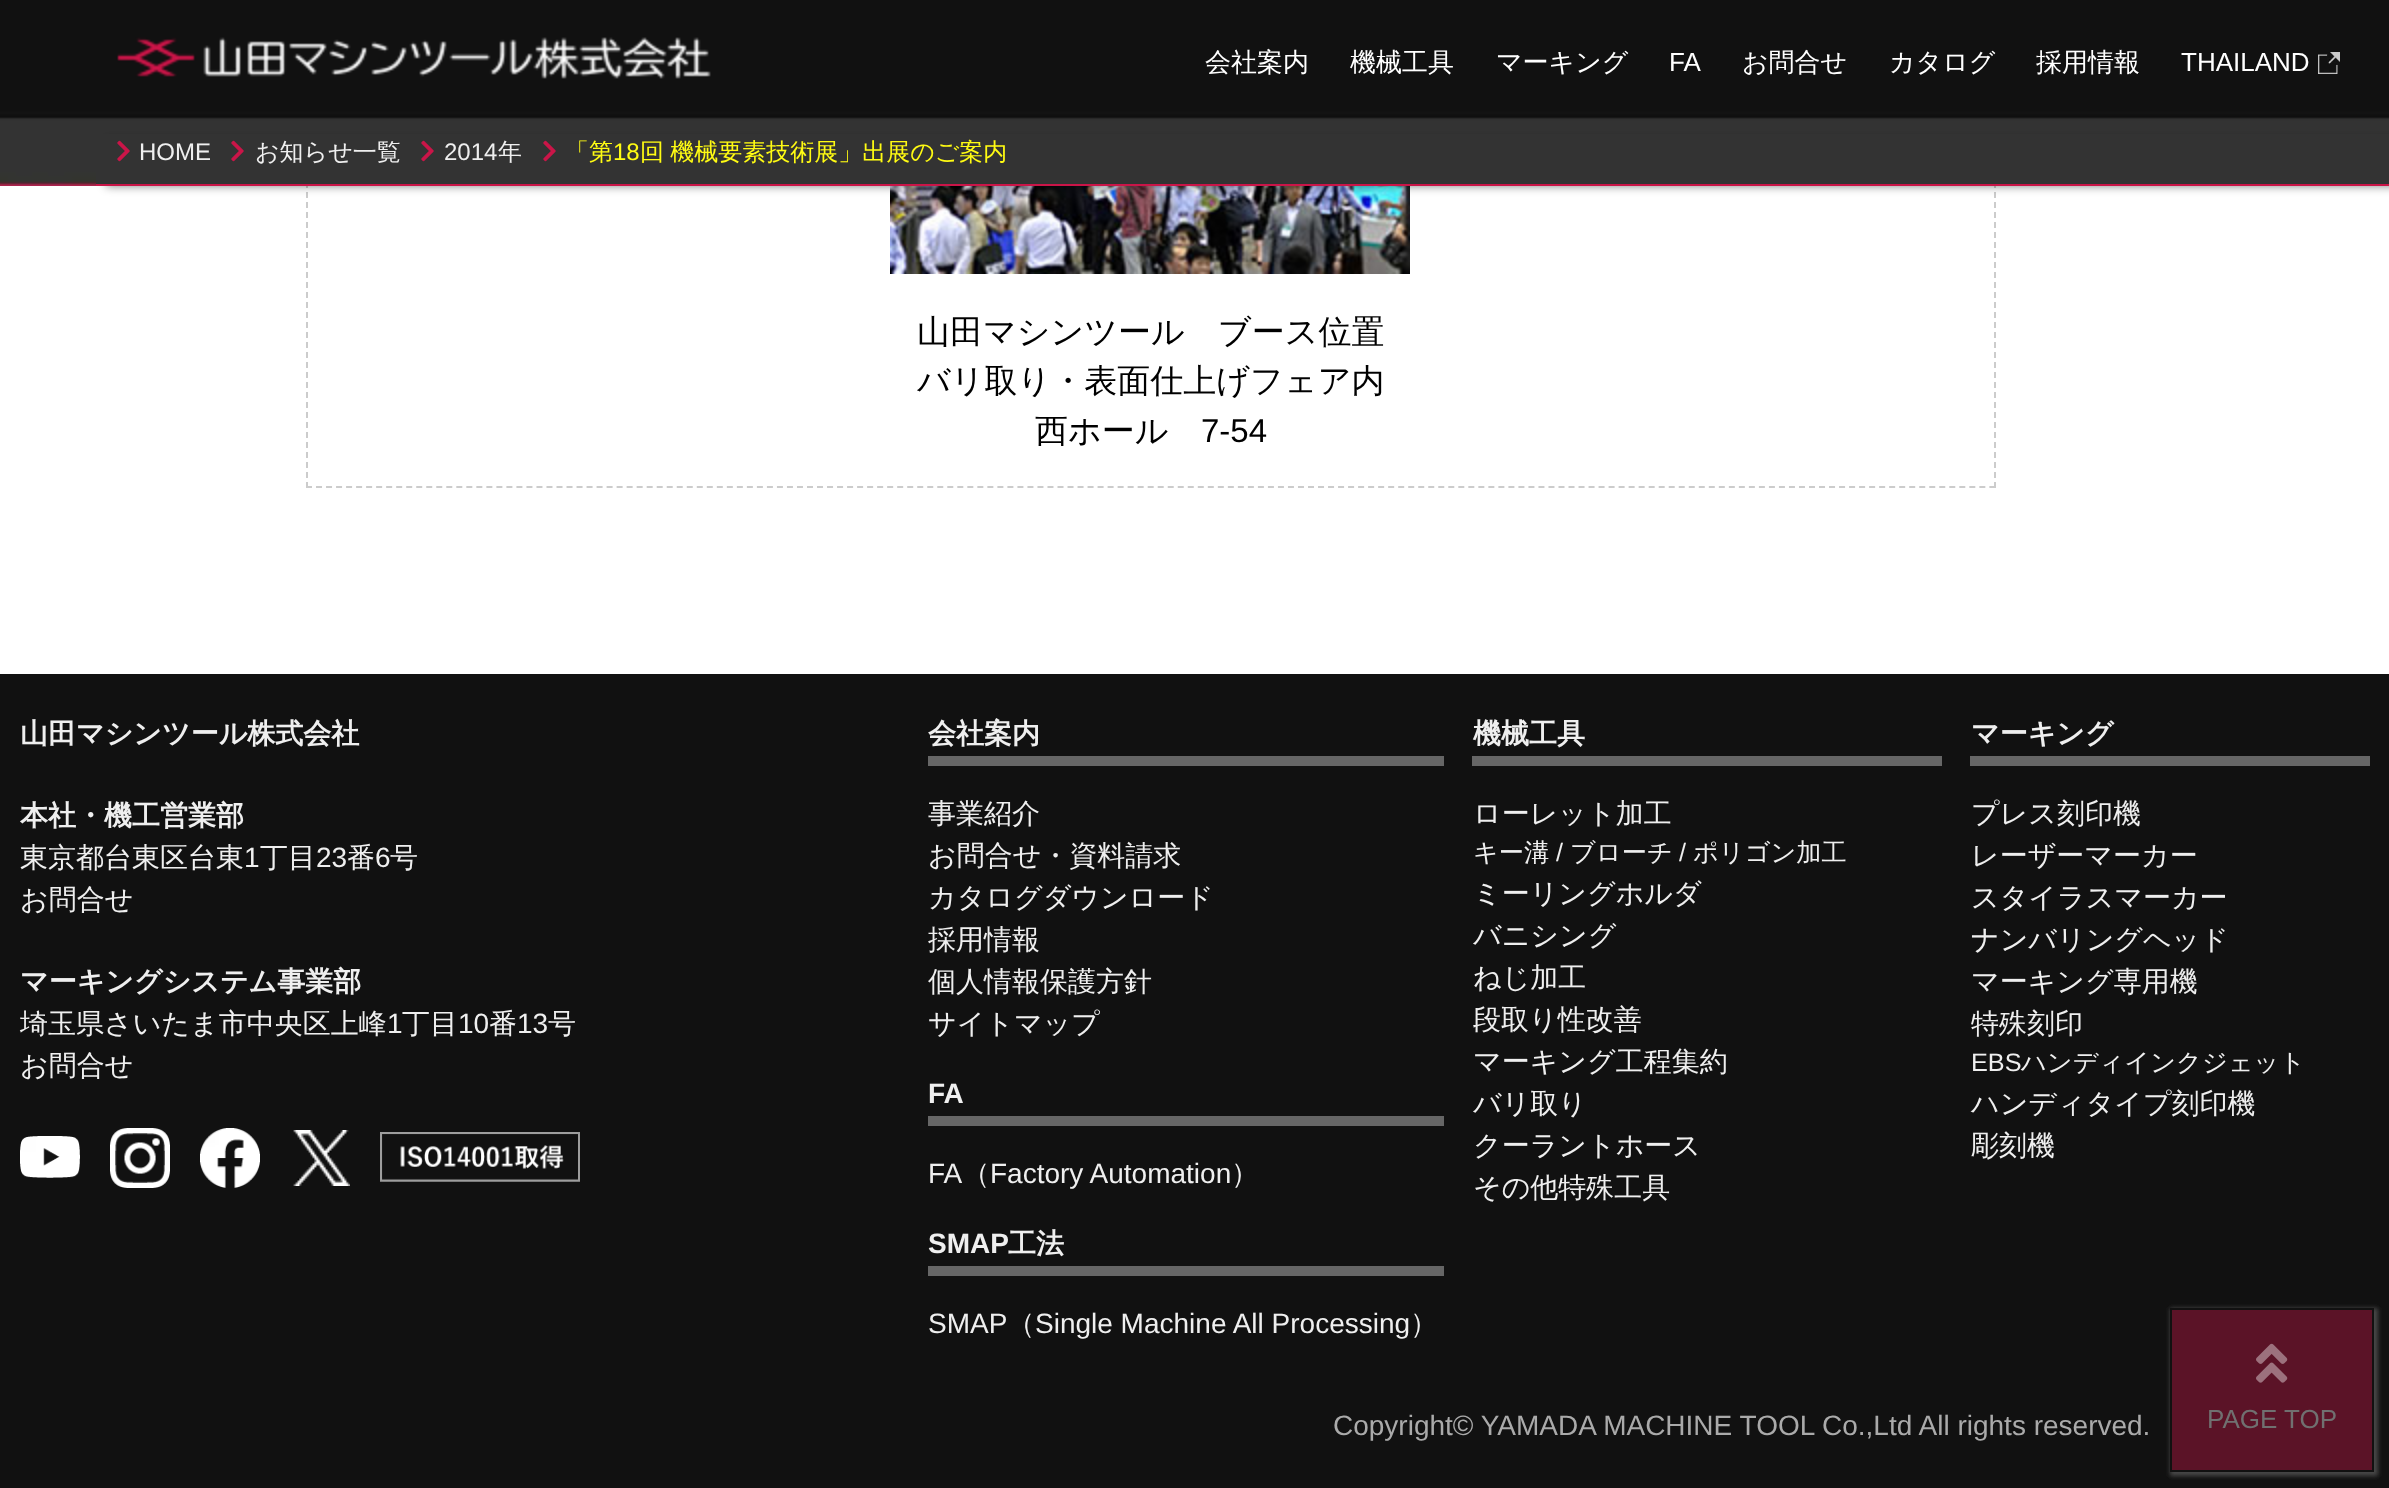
<?xml version="1.0" encoding="UTF-8"?>
<svg xmlns="http://www.w3.org/2000/svg" width="2389" height="1488">
    <defs>
        <filter id="blur1" x="-50%" y="-200%" width="200%" height="500%"><feGaussianBlur stdDeviation="5"/></filter>
        <filter id="blur2" x="-50%" y="-200%" width="200%" height="500%"><feGaussianBlur stdDeviation="2"/></filter>
    </defs>
    <rect width="100%" height="100%" fill="#FFFFFF"/>
    <path d="M 1995 -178 V 488" fill="none" stroke="#CCCCCC" stroke-width="2" stroke-dasharray="6 4"/>
    <path d="M 306 487 H 1996" fill="none" stroke="#CCCCCC" stroke-width="2" stroke-dasharray="6 4.02"/>
    <path d="M 307 -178 V 488" fill="none" stroke="#CCCCCC" stroke-width="2" stroke-dasharray="6 4"/>
    <image x="0" y="0" width="2389" height="186" href="img_01.png"/>
    <image x="117" y="37" width="594" height="42" href="img_02.png"/>
    <text x="1205" y="71" font-family="WenQuanYi Zen Hei" font-size="26" font-weight="500" fill="#FFFFFF">会社案内</text>
    <text x="1350" y="71" font-family="WenQuanYi Zen Hei" font-size="26" font-weight="500" fill="#FFFFFF">機械工具</text>
    <text x="1496" y="71" font-family="WenQuanYi Zen Hei" font-size="26" font-weight="500" fill="#FFFFFF">マーキング</text>
    <text x="1669" y="71" font-family="Liberation Sans" font-size="26" fill="#FFFFFF">FA</text>
    <text x="1742" y="71" font-family="WenQuanYi Zen Hei" font-size="26" font-weight="500" fill="#FFFFFF">お問合せ</text>
    <text x="1889" y="71" font-family="WenQuanYi Zen Hei" font-size="26" font-weight="500" fill="#FFFFFF">カタログ</text>
    <text x="2036" y="71" font-family="WenQuanYi Zen Hei" font-size="26" font-weight="500" fill="#FFFFFF">採用情報</text>
    <image x="2318" y="52" width="22" height="22" href="img_03.png"/>
    <text x="2181" y="71" font-family="Liberation Sans" font-size="26" fill="#FFFFFF">THAILAND</text>
    <image x="890" y="186" width="520" height="88" href="img_05.png"/>
    <rect x="106" y="140" width="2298" height="46" fill="#000000" fill-opacity="0.5" filter="url(#blur1)"/>
    <rect x="96" y="134" width="2293" height="50" fill="#333333"/>
    <rect x="96" y="184" width="2293" height="2" fill="#CA1548"/>
    <image x="117" y="140" width="13" height="22" href="img_04.png"/>
    <text x="139" y="160" font-family="Liberation Sans" font-size="24" fill="#EFEFEF">HOME</text>
    <image x="231" y="140" width="13" height="22" href="img_04.png"/>
    <text x="255" y="160" font-family="WenQuanYi Zen Hei" font-size="24" font-weight="500" fill="#EFEFEF">お知らせ一覧</text>
    <image x="421" y="140" width="13" height="22" href="img_04.png"/>
    <text x="444" y="160" font-family="Liberation Sans" font-size="24" fill="#EFEFEF">2014</text>
    <text x="498" y="160" font-family="WenQuanYi Zen Hei" font-size="24" font-weight="500" fill="#EFEFEF">年</text>
    <image x="543" y="140" width="13" height="22" href="img_04.png"/>
    <text x="565" y="160" font-family="WenQuanYi Zen Hei" font-size="24" font-weight="500" fill="#FFFB13">「第</text>
    <text x="613" y="160" font-family="Liberation Sans" font-size="24" fill="#FFFB13">18</text>
    <text x="640" y="160" word-spacing="-1" font-family="WenQuanYi Zen Hei" font-size="24" font-weight="500" fill="#FFFB13">回 機械要素技術展」出展のご案内</text>
    <text font-family="WenQuanYi Zen Hei" font-size="33" font-weight="500" fill="#000000">
        <tspan x="917" y="343">山田マシンツール　ブース位置</tspan>
        <tspan x="917" y="392">バリ取り・表面仕上げフェア内</tspan>
    </text>
    <text x="1035" y="442" font-family="WenQuanYi Zen Hei" font-size="33" font-weight="500" fill="#000000">西ホール</text>
    <text x="1201" y="442" font-family="Liberation Sans" font-size="33" fill="#000000">7-54</text>
    <rect x="0" y="674" width="2389" height="814" fill="#111111"/>
    <text x="20" y="743" font-family="WenQuanYi Zen Hei" font-size="28" font-weight="700" fill="#EFEFEF">山田マシンツール株式会社</text>
    <text x="20" y="825" font-family="WenQuanYi Zen Hei" font-size="28" font-weight="700" fill="#EFEFEF">本社・機工営業部</text>
    <text x="20" y="867" font-family="WenQuanYi Zen Hei" font-size="28" font-weight="500" fill="#EFEFEF">東京都台東区台東</text>
    <text x="244" y="867" font-family="Liberation Sans" font-size="28" fill="#EFEFEF">1</text>
    <text x="260" y="867" font-family="WenQuanYi Zen Hei" font-size="28" font-weight="500" fill="#EFEFEF">丁目</text>
    <text x="316" y="867" font-family="Liberation Sans" font-size="28" fill="#EFEFEF">23</text>
    <text x="347" y="867" font-family="WenQuanYi Zen Hei" font-size="28" font-weight="500" fill="#EFEFEF">番</text>
    <text x="375" y="867" font-family="Liberation Sans" font-size="28" fill="#EFEFEF">6</text>
    <text x="390" y="867" font-family="WenQuanYi Zen Hei" font-size="28" font-weight="500" fill="#EFEFEF">号</text>
    <text x="20" y="909" font-family="WenQuanYi Zen Hei" font-size="28" font-weight="500" fill="#EFEFEF">お問合せ</text>
    <text x="20" y="991" font-family="WenQuanYi Zen Hei" font-size="28" font-weight="700" fill="#EFEFEF">マーキングシステム事業部</text>
    <text x="20" y="1033" font-family="WenQuanYi Zen Hei" font-size="28" font-weight="500" fill="#EFEFEF">埼玉県さいたま市中央区上峰</text>
    <text x="387" y="1033" font-family="Liberation Sans" font-size="28" fill="#EFEFEF">1</text>
    <text x="402" y="1033" font-family="WenQuanYi Zen Hei" font-size="28" font-weight="500" fill="#EFEFEF">丁目</text>
    <text x="458" y="1033" font-family="Liberation Sans" font-size="28" fill="#EFEFEF">10</text>
    <text x="489" y="1033" font-family="WenQuanYi Zen Hei" font-size="28" font-weight="500" fill="#EFEFEF">番</text>
    <text x="517" y="1033" font-family="Liberation Sans" font-size="28" fill="#EFEFEF">13</text>
    <text x="548" y="1033" font-family="WenQuanYi Zen Hei" font-size="28" font-weight="500" fill="#EFEFEF">号</text>
    <text x="20" y="1075" font-family="WenQuanYi Zen Hei" font-size="28" font-weight="500" fill="#EFEFEF">お問合せ</text>
    <image x="20" y="1136" width="60" height="42" href="img_06.png"/>
    <image x="110" y="1128" width="60" height="60" href="img_07.png"/>
    <image x="200" y="1128" width="60" height="60" href="img_08.png"/>
    <image x="293" y="1130" width="57" height="56" href="img_09.png"/>
    <image x="380" y="1132" width="200" height="50" href="img_10.png"/>
    <rect x="928" y="756" width="516" height="10" fill="#666666"/>
    <text x="928" y="743" font-family="WenQuanYi Zen Hei" font-size="28" font-weight="700" fill="#EFEFEF">会社案内</text>
    <text font-family="WenQuanYi Zen Hei" font-size="28" font-weight="500" fill="#EFEFEF">
        <tspan x="928" y="823">事業紹介</tspan>
        <tspan x="928" y="865">お問合せ・資料請求</tspan>
        <tspan x="928" y="907">カタログダウンロード</tspan>
        <tspan x="928" y="949">採用情報</tspan>
        <tspan x="928" y="991">個人情報保護方針</tspan>
        <tspan x="928" y="1033">サイトマップ</tspan>
    </text>
    <rect x="928" y="1116" width="516" height="10" fill="#666666"/>
    <text x="928" y="1103" font-family="Liberation Sans" font-size="28" font-weight="700" fill="#EFEFEF">FA</text>
    <text x="928" y="1183" font-family="Liberation Sans" font-size="28" fill="#EFEFEF">FA</text>
    <text x="962" y="1183" font-family="WenQuanYi Zen Hei" font-size="28" font-weight="500" fill="#EFEFEF">（</text>
    <text x="990" y="1183" font-family="Liberation Sans" font-size="28" fill="#EFEFEF">Factory Automation</text>
    <text x="1231" y="1183" font-family="WenQuanYi Zen Hei" font-size="28" font-weight="500" fill="#EFEFEF">）</text>
    <rect x="928" y="1266" width="516" height="10" fill="#666666"/>
    <text x="928" y="1253" font-family="Liberation Sans" font-size="28" font-weight="700" fill="#EFEFEF">SMAP</text>
    <text x="1008" y="1253" font-family="WenQuanYi Zen Hei" font-size="28" font-weight="700" fill="#EFEFEF">工法</text>
    <text x="928" y="1333" font-family="Liberation Sans" font-size="28" fill="#EFEFEF">SMAP</text>
    <text x="1007" y="1333" font-family="WenQuanYi Zen Hei" font-size="28" font-weight="500" fill="#EFEFEF">（</text>
    <text x="1035" y="1333" font-family="Liberation Sans" font-size="28" fill="#EFEFEF">Single Machine All Processing</text>
    <text x="1410" y="1333" font-family="WenQuanYi Zen Hei" font-size="28" font-weight="500" fill="#EFEFEF">）</text>
    <rect x="1472" y="756" width="470" height="10" fill="#666666"/>
    <text x="1473" y="743" font-family="WenQuanYi Zen Hei" font-size="28" font-weight="700" fill="#EFEFEF">機械工具</text>
    <text x="1473" y="823" font-family="WenQuanYi Zen Hei" font-size="28" font-weight="500" fill="#EFEFEF">ローレット加工</text>
    <text x="1473" y="861" font-family="WenQuanYi Zen Hei" font-size="25.25" font-weight="500" fill="#EFEFEF">キー溝</text>
    <text x="1556" y="861" font-family="Liberation Sans" font-size="25.25" fill="#EFEFEF">/</text>
    <text x="1570" y="861" font-family="WenQuanYi Zen Hei" font-size="25.25" font-weight="500" fill="#EFEFEF">ブローチ</text>
    <text x="1679" y="861" font-family="Liberation Sans" font-size="25.25" fill="#EFEFEF">/</text>
    <text x="1693" y="861" font-family="WenQuanYi Zen Hei" font-size="25.25" font-weight="500" fill="#EFEFEF">ポリゴン加工</text>
    <text font-family="WenQuanYi Zen Hei" font-size="28" font-weight="500" fill="#EFEFEF">
        <tspan x="1473" y="903">ミーリングホルダ</tspan>
        <tspan x="1473" y="945">バニシング</tspan>
        <tspan x="1473" y="987">ねじ加工</tspan>
        <tspan x="1473" y="1029">段取り性改善</tspan>
        <tspan x="1473" y="1071">マーキング工程集約</tspan>
        <tspan x="1473" y="1113">バリ取り</tspan>
        <tspan x="1473" y="1155">クーラントホース</tspan>
        <tspan x="1473" y="1197">その他特殊工具</tspan>
    </text>
    <rect x="1970" y="756" width="400" height="10" fill="#666666"/>
    <text x="1971" y="743" font-family="WenQuanYi Zen Hei" font-size="28" font-weight="700" fill="#EFEFEF">マーキング</text>
    <text font-family="WenQuanYi Zen Hei" font-size="28" font-weight="500" fill="#EFEFEF">
        <tspan x="1971" y="823">プレス刻印機</tspan>
        <tspan x="1971" y="865">レーザーマーカー</tspan>
        <tspan x="1971" y="907">スタイラスマーカー</tspan>
        <tspan x="1971" y="949">ナンバリングヘッド</tspan>
        <tspan x="1971" y="991">マーキング専用機</tspan>
        <tspan x="1971" y="1033">特殊刻印</tspan>
    </text>
    <text x="1971" y="1071" font-family="Liberation Sans" font-size="25.25" fill="#EFEFEF">EBS</text>
    <text x="2021" y="1071" font-family="WenQuanYi Zen Hei" font-size="25.25" font-weight="500" fill="#EFEFEF">ハンディインクジェット</text>
    <text font-family="WenQuanYi Zen Hei" font-size="28" font-weight="500" fill="#EFEFEF">
        <tspan x="1971" y="1113">ハンディタイプ刻印機</tspan>
        <tspan x="1971" y="1155">彫刻機</tspan>
    </text>
    <text x="1333" y="1435" font-family="Liberation Sans" font-size="28" fill="#AAAAAA">Copyright© YAMADA MACHINE TOOL Co.,Ltd All rights reserved.</text>
    <rect x="2170" y="1308" width="208" height="168" fill="#474747" filter="url(#blur2)"/>
    <rect x="2171" y="1309" width="202" height="162" fill="#5B1327" stroke="#111111" stroke-width="2"/>
    <image x="2256" y="1343" width="32" height="40" href="img_11.png"/>
    <text x="2207" y="1428" font-family="Liberation Sans" font-size="26" fill="#707070">PAGE TOP</text>
</svg>
